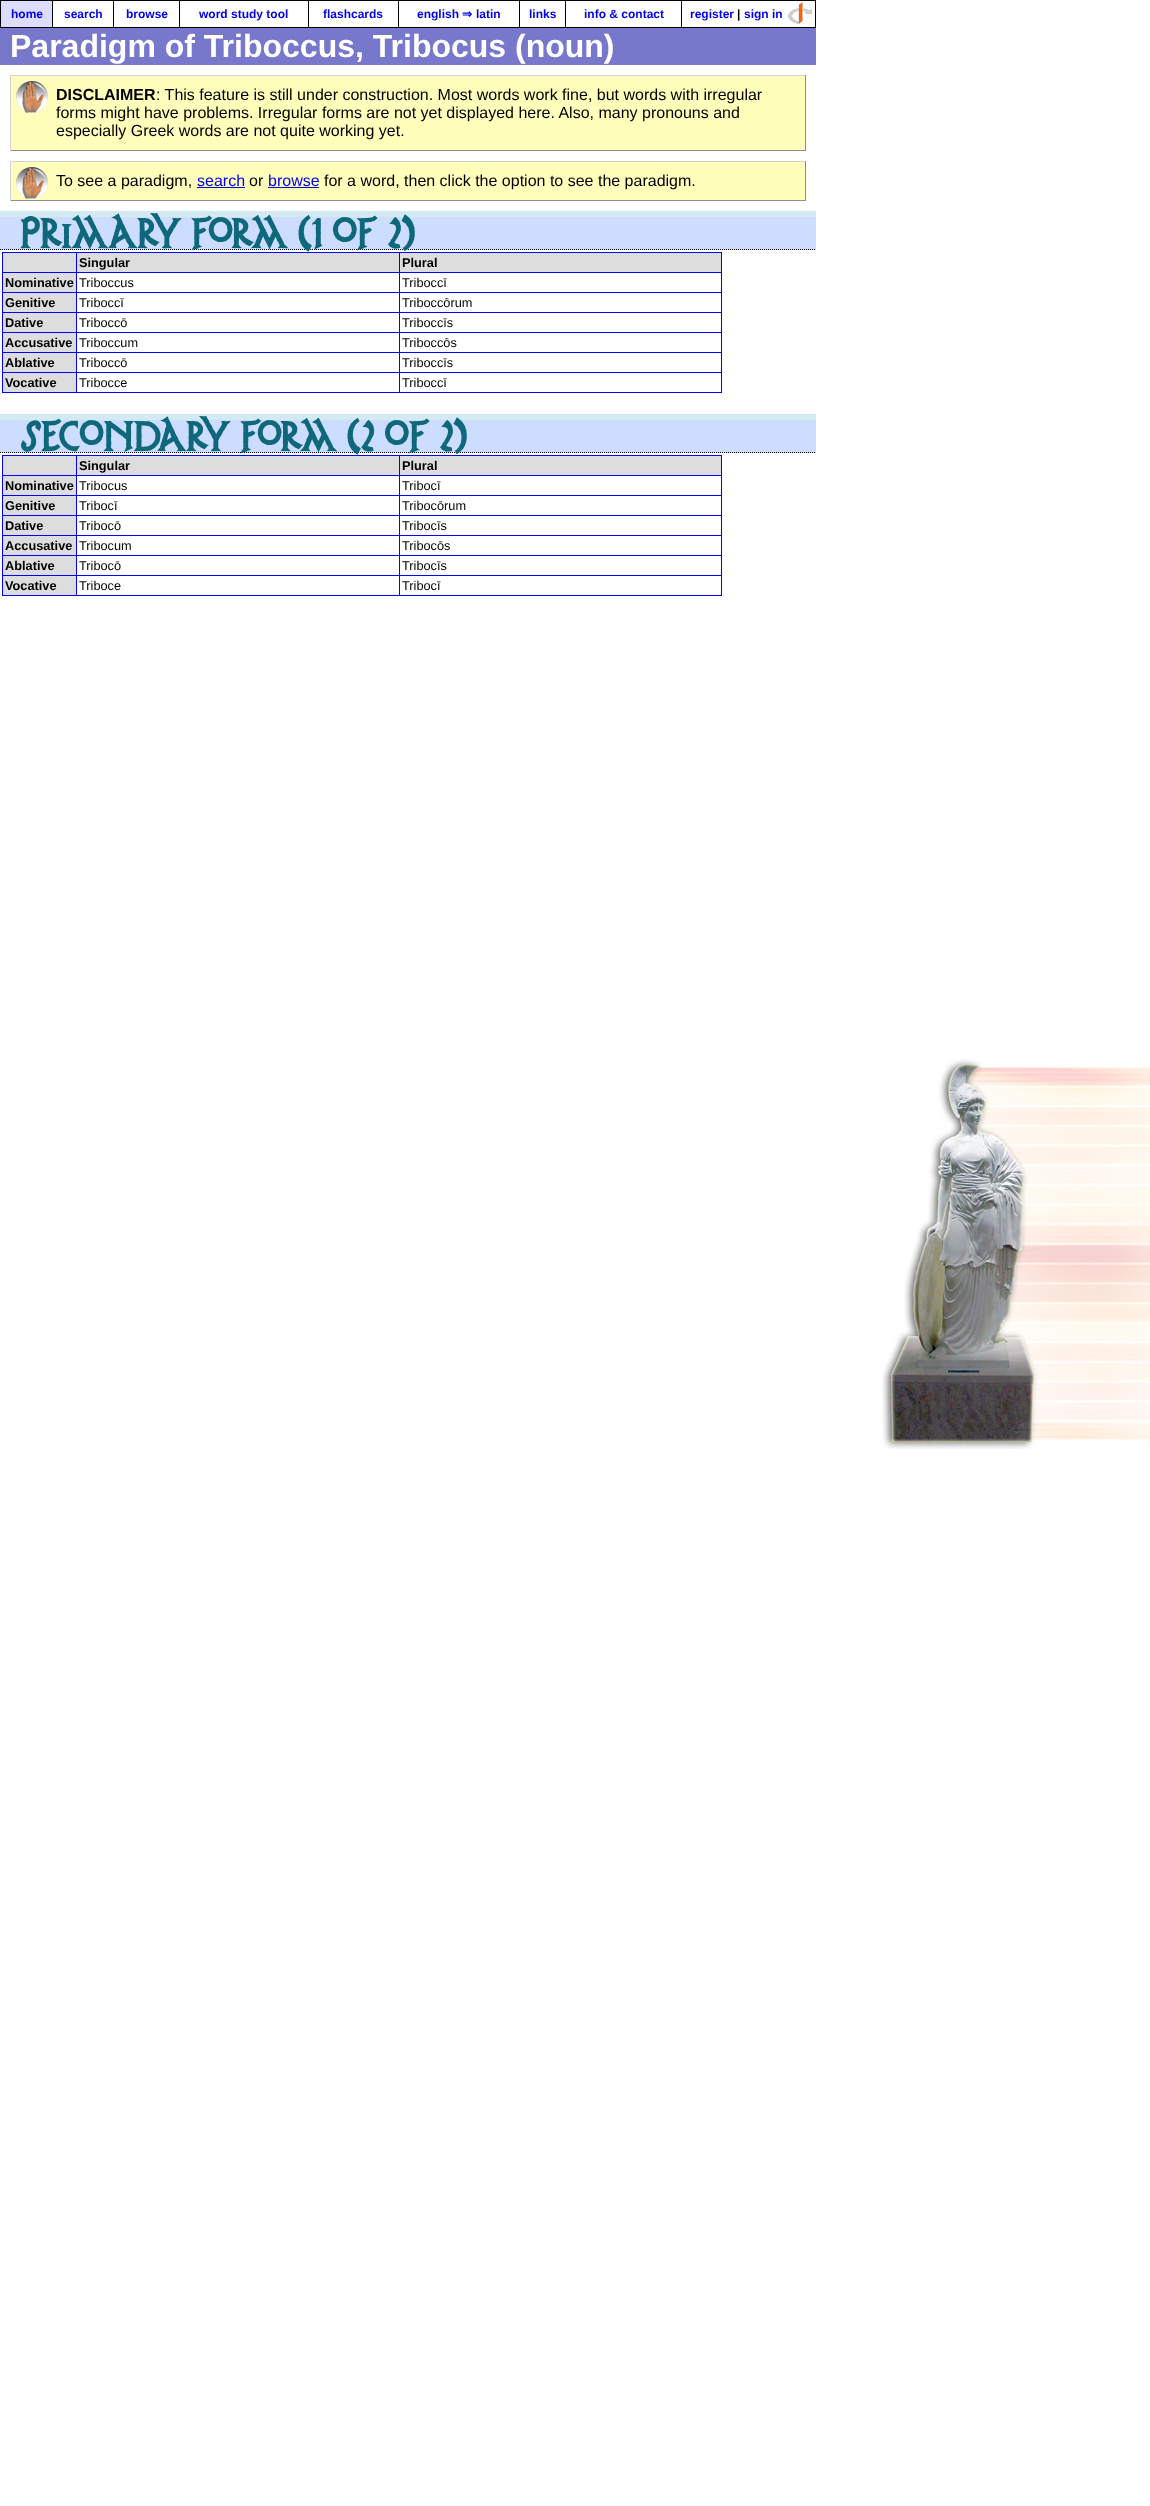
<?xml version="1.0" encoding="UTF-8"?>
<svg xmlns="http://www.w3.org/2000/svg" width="1150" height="2506">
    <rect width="100%" height="100%" fill="#FFFFFF"/>
    <image x="882" y="1059" width="268" height="390" href="img_01.png"/>
    <rect x="1" y="1" width="51" height="26" fill="#DDDDFF"/>
    <rect x="681" y="0" width="135" height="1" fill="#000000"/>
    <rect x="815" y="0" width="1" height="28" fill="#000000"/>
    <rect x="681" y="27" width="135" height="1" fill="#000000"/>
    <rect x="681" y="0" width="1" height="28" fill="#000000"/>
    <rect x="565" y="0" width="117" height="1" fill="#000000"/>
    <rect x="565" y="27" width="117" height="1" fill="#000000"/>
    <rect x="565" y="0" width="1" height="28" fill="#000000"/>
    <rect x="519" y="0" width="47" height="1" fill="#000000"/>
    <rect x="519" y="27" width="47" height="1" fill="#000000"/>
    <rect x="519" y="0" width="1" height="28" fill="#000000"/>
    <rect x="398" y="0" width="122" height="1" fill="#000000"/>
    <rect x="398" y="27" width="122" height="1" fill="#000000"/>
    <rect x="398" y="0" width="1" height="28" fill="#000000"/>
    <rect x="308" y="0" width="91" height="1" fill="#000000"/>
    <rect x="308" y="27" width="91" height="1" fill="#000000"/>
    <rect x="308" y="0" width="1" height="28" fill="#000000"/>
    <rect x="179" y="0" width="130" height="1" fill="#000000"/>
    <rect x="179" y="27" width="130" height="1" fill="#000000"/>
    <rect x="179" y="0" width="1" height="28" fill="#000000"/>
    <rect x="113" y="0" width="67" height="1" fill="#000000"/>
    <rect x="113" y="27" width="67" height="1" fill="#000000"/>
    <rect x="113" y="0" width="1" height="28" fill="#000000"/>
    <rect x="52" y="0" width="62" height="1" fill="#000000"/>
    <rect x="52" y="27" width="62" height="1" fill="#000000"/>
    <rect x="52" y="0" width="1" height="28" fill="#000000"/>
    <rect x="0" y="0" width="53" height="1" fill="#000000"/>
    <rect x="0" y="27" width="53" height="1" fill="#000000"/>
    <rect x="0" y="0" width="1" height="28" fill="#000000"/>
    <text x="11" y="18" font-family="Liberation Sans" font-size="12" font-weight="700" fill="#0000EE">home</text>
    <text x="64" y="18" font-family="Liberation Sans" font-size="12" font-weight="700" fill="#0000EE">search</text>
    <text x="126" y="18" font-family="Liberation Sans" font-size="12" font-weight="700" fill="#0000EE">browse</text>
    <text x="199" y="18" font-family="Liberation Sans" font-size="12" font-weight="700" fill="#0000EE">word study tool</text>
    <text x="323" y="18" font-family="Liberation Sans" font-size="12" font-weight="700" fill="#0000EE">flashcards</text>
    <text x="417" y="18" font-family="Liberation Sans" font-size="12" font-weight="700" fill="#0000EE">english</text>
    <text x="462" y="18" font-family="DejaVu Sans" font-size="12" font-weight="700" fill="#0000EE">⇒</text>
    <text x="476" y="18" font-family="Liberation Sans" font-size="12" font-weight="700" fill="#0000EE">latin</text>
    <text x="529" y="18" font-family="Liberation Sans" font-size="12" font-weight="700" fill="#0000EE">links</text>
    <text x="584" y="18" font-family="Liberation Sans" font-size="12" font-weight="700" fill="#0000EE">info &amp; contact</text>
    <text x="690" y="18" font-family="Liberation Sans" font-size="12" font-weight="700" fill="#0000EE">register</text>
    <text x="737" y="18" font-family="Liberation Sans" font-size="12" font-weight="700" fill="#000000">|</text>
    <text x="744" y="18" font-family="Liberation Sans" font-size="12" font-weight="700" fill="#0000EE">sign in</text>
    <image x="788" y="2" width="24" height="22" href="img_02.png"/>
    <rect x="0" y="28" width="816" height="37" fill="#7777CC"/>
    <text x="10" y="57" font-family="Liberation Sans" font-size="32" font-weight="700" fill="#FFFFFF">Paradigm of Triboccus, Tribocus (noun)</text>
    <rect x="11" y="76" width="794" height="74" fill="#FFFFBB"/>
    <image x="16" y="81" width="32" height="32" href="img_03.png"/>
    <rect x="10" y="75" width="796" height="1" fill="#D3D3D3"/>
    <rect x="805" y="75" width="1" height="76" fill="#8D8D8D"/>
    <rect x="10" y="150" width="796" height="1" fill="#8D8D8D"/>
    <rect x="10" y="75" width="1" height="76" fill="#D3D3D3"/>
    <text x="56" y="100" font-family="Liberation Sans" font-size="16" font-weight="700" fill="#000000">DISCLAIMER</text>
    <text x="156" y="100" font-family="Liberation Sans" font-size="16" fill="#000000">: This feature is still under construction. Most words work fine, but words with irregular</text>
    <text font-family="Liberation Sans" font-size="16" fill="#000000">
        <tspan x="56" y="118">forms might have problems. Irregular forms are not yet displayed here. Also, many pronouns and</tspan>
        <tspan x="56" y="136">especially Greek words are not quite working yet.</tspan>
    </text>
    <rect x="11" y="162" width="794" height="38" fill="#FFFFBB"/>
    <image x="16" y="167" width="32" height="32" href="img_03.png"/>
    <rect x="10" y="161" width="796" height="1" fill="#D3D3D3"/>
    <rect x="805" y="161" width="1" height="40" fill="#8D8D8D"/>
    <rect x="10" y="200" width="796" height="1" fill="#8D8D8D"/>
    <rect x="10" y="161" width="1" height="40" fill="#D3D3D3"/>
    <text x="56" y="186" font-family="Liberation Sans" font-size="16" fill="#000000">To see a paradigm,</text>
    <text x="197" y="186" font-family="Liberation Sans" font-size="16" fill="#0000EE">search</text>
    <rect x="197" y="187" width="48" height="1" fill="#0000EE"/>
    <text x="249" y="186" font-family="Liberation Sans" font-size="16" fill="#000000">or</text>
    <text x="268" y="186" font-family="Liberation Sans" font-size="16" fill="#0000EE">browse</text>
    <rect x="268" y="187" width="51" height="1" fill="#0000EE"/>
    <text x="324" y="186" font-family="Liberation Sans" font-size="16" fill="#000000">for a word, then click the option to see the paradigm.</text>
    <rect x="0" y="217" width="816" height="33" fill="#CCDDFF"/>
    <rect x="0" y="211" width="816" height="6" fill="#D3EAF2"/>
    <path d="M 0 249.5 H 816" fill="none" stroke="#000000" stroke-dasharray="1 1"/>
    <text x="20" y="248" font-family="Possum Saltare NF" font-size="40" font-weight="700" fill="#0E677A">primary form (1 of 2)</text>
    <rect x="721" y="252" width="1" height="141" fill="#0000FF"/>
    <rect x="2" y="392" width="720" height="1" fill="#0000FF"/>
    <rect x="3" y="253" width="73" height="19" fill="#DDDDDD"/>
    <rect x="2" y="252" width="719" height="1" fill="#0000FF"/>
    <rect x="2" y="252" width="1" height="20" fill="#0000FF"/>
    <rect x="77" y="253" width="322" height="19" fill="#DDDDDD"/>
    <rect x="76" y="252" width="1" height="20" fill="#0000FF"/>
    <text x="79" y="267" font-family="Liberation Sans" font-size="12.75" font-weight="700" fill="#000000">Singular</text>
    <rect x="400" y="253" width="321" height="19" fill="#DDDDDD"/>
    <rect x="399" y="252" width="1" height="20" fill="#0000FF"/>
    <text x="402" y="267" font-family="Liberation Sans" font-size="12.75" font-weight="700" fill="#000000">Plural</text>
    <rect x="3" y="273" width="73" height="19" fill="#DDDDDD"/>
    <rect x="2" y="272" width="719" height="1" fill="#0000FF"/>
    <rect x="2" y="272" width="1" height="20" fill="#0000FF"/>
    <text x="5" y="287" font-family="Liberation Sans" font-size="12.75" font-weight="700" fill="#000000">Nominative</text>
    <rect x="76" y="272" width="1" height="20" fill="#0000FF"/>
    <text x="79" y="287" font-family="Liberation Sans" font-size="12.75" fill="#000000">Triboccus</text>
    <rect x="399" y="272" width="1" height="20" fill="#0000FF"/>
    <text x="402" y="287" font-family="Liberation Sans" font-size="12.75" fill="#000000">Triboccī</text>
    <rect x="3" y="293" width="73" height="19" fill="#DDDDDD"/>
    <rect x="2" y="292" width="719" height="1" fill="#0000FF"/>
    <rect x="2" y="292" width="1" height="20" fill="#0000FF"/>
    <text x="5" y="307" font-family="Liberation Sans" font-size="12.75" font-weight="700" fill="#000000">Genitive</text>
    <rect x="76" y="292" width="1" height="20" fill="#0000FF"/>
    <text x="79" y="307" font-family="Liberation Sans" font-size="12.75" fill="#000000">Triboccī</text>
    <rect x="399" y="292" width="1" height="20" fill="#0000FF"/>
    <text x="402" y="307" font-family="Liberation Sans" font-size="12.75" fill="#000000">Triboccōrum</text>
    <rect x="3" y="313" width="73" height="19" fill="#DDDDDD"/>
    <rect x="2" y="312" width="719" height="1" fill="#0000FF"/>
    <rect x="2" y="312" width="1" height="20" fill="#0000FF"/>
    <text x="5" y="327" font-family="Liberation Sans" font-size="12.75" font-weight="700" fill="#000000">Dative</text>
    <rect x="76" y="312" width="1" height="20" fill="#0000FF"/>
    <text x="79" y="327" font-family="Liberation Sans" font-size="12.75" fill="#000000">Triboccō</text>
    <rect x="399" y="312" width="1" height="20" fill="#0000FF"/>
    <text x="402" y="327" font-family="Liberation Sans" font-size="12.75" fill="#000000">Triboccīs</text>
    <rect x="3" y="333" width="73" height="19" fill="#DDDDDD"/>
    <rect x="2" y="332" width="719" height="1" fill="#0000FF"/>
    <rect x="2" y="332" width="1" height="20" fill="#0000FF"/>
    <text x="5" y="347" font-family="Liberation Sans" font-size="12.75" font-weight="700" fill="#000000">Accusative</text>
    <rect x="76" y="332" width="1" height="20" fill="#0000FF"/>
    <text x="79" y="347" font-family="Liberation Sans" font-size="12.75" fill="#000000">Triboccum</text>
    <rect x="399" y="332" width="1" height="20" fill="#0000FF"/>
    <text x="402" y="347" font-family="Liberation Sans" font-size="12.75" fill="#000000">Triboccōs</text>
    <rect x="3" y="353" width="73" height="19" fill="#DDDDDD"/>
    <rect x="2" y="352" width="719" height="1" fill="#0000FF"/>
    <rect x="2" y="352" width="1" height="20" fill="#0000FF"/>
    <text x="5" y="367" font-family="Liberation Sans" font-size="12.75" font-weight="700" fill="#000000">Ablative</text>
    <rect x="76" y="352" width="1" height="20" fill="#0000FF"/>
    <text x="79" y="367" font-family="Liberation Sans" font-size="12.75" fill="#000000">Triboccō</text>
    <rect x="399" y="352" width="1" height="20" fill="#0000FF"/>
    <text x="402" y="367" font-family="Liberation Sans" font-size="12.75" fill="#000000">Triboccīs</text>
    <rect x="3" y="373" width="73" height="19" fill="#DDDDDD"/>
    <rect x="2" y="372" width="719" height="1" fill="#0000FF"/>
    <rect x="2" y="372" width="1" height="20" fill="#0000FF"/>
    <text x="5" y="387" font-family="Liberation Sans" font-size="12.75" font-weight="700" fill="#000000">Vocative</text>
    <rect x="76" y="372" width="1" height="20" fill="#0000FF"/>
    <text x="79" y="387" font-family="Liberation Sans" font-size="12.75" fill="#000000">Tribocce</text>
    <rect x="399" y="372" width="1" height="20" fill="#0000FF"/>
    <text x="402" y="387" font-family="Liberation Sans" font-size="12.75" fill="#000000">Triboccī</text>
    <rect x="0" y="420" width="816" height="33" fill="#CCDDFF"/>
    <rect x="0" y="414" width="816" height="6" fill="#D3EAF2"/>
    <path d="M 0 452.5 H 816" fill="none" stroke="#000000" stroke-dasharray="1 1"/>
    <text x="20" y="451" font-family="Possum Saltare NF" font-size="40" font-weight="700" fill="#0E677A">secondary form (2 of 2)</text>
    <rect x="721" y="455" width="1" height="141" fill="#0000FF"/>
    <rect x="2" y="595" width="720" height="1" fill="#0000FF"/>
    <rect x="3" y="456" width="73" height="19" fill="#DDDDDD"/>
    <rect x="2" y="455" width="719" height="1" fill="#0000FF"/>
    <rect x="2" y="455" width="1" height="20" fill="#0000FF"/>
    <rect x="77" y="456" width="322" height="19" fill="#DDDDDD"/>
    <rect x="76" y="455" width="1" height="20" fill="#0000FF"/>
    <text x="79" y="470" font-family="Liberation Sans" font-size="12.75" font-weight="700" fill="#000000">Singular</text>
    <rect x="400" y="456" width="321" height="19" fill="#DDDDDD"/>
    <rect x="399" y="455" width="1" height="20" fill="#0000FF"/>
    <text x="402" y="470" font-family="Liberation Sans" font-size="12.75" font-weight="700" fill="#000000">Plural</text>
    <rect x="3" y="476" width="73" height="19" fill="#DDDDDD"/>
    <rect x="2" y="475" width="719" height="1" fill="#0000FF"/>
    <rect x="2" y="475" width="1" height="20" fill="#0000FF"/>
    <text x="5" y="490" font-family="Liberation Sans" font-size="12.75" font-weight="700" fill="#000000">Nominative</text>
    <rect x="76" y="475" width="1" height="20" fill="#0000FF"/>
    <text x="79" y="490" font-family="Liberation Sans" font-size="12.75" fill="#000000">Tribocus</text>
    <rect x="399" y="475" width="1" height="20" fill="#0000FF"/>
    <text x="402" y="490" font-family="Liberation Sans" font-size="12.75" fill="#000000">Tribocī</text>
    <rect x="3" y="496" width="73" height="19" fill="#DDDDDD"/>
    <rect x="2" y="495" width="719" height="1" fill="#0000FF"/>
    <rect x="2" y="495" width="1" height="20" fill="#0000FF"/>
    <text x="5" y="510" font-family="Liberation Sans" font-size="12.75" font-weight="700" fill="#000000">Genitive</text>
    <rect x="76" y="495" width="1" height="20" fill="#0000FF"/>
    <text x="79" y="510" font-family="Liberation Sans" font-size="12.75" fill="#000000">Tribocī</text>
    <rect x="399" y="495" width="1" height="20" fill="#0000FF"/>
    <text x="402" y="510" font-family="Liberation Sans" font-size="12.75" fill="#000000">Tribocōrum</text>
    <rect x="3" y="516" width="73" height="19" fill="#DDDDDD"/>
    <rect x="2" y="515" width="719" height="1" fill="#0000FF"/>
    <rect x="2" y="515" width="1" height="20" fill="#0000FF"/>
    <text x="5" y="530" font-family="Liberation Sans" font-size="12.75" font-weight="700" fill="#000000">Dative</text>
    <rect x="76" y="515" width="1" height="20" fill="#0000FF"/>
    <text x="79" y="530" font-family="Liberation Sans" font-size="12.75" fill="#000000">Tribocō</text>
    <rect x="399" y="515" width="1" height="20" fill="#0000FF"/>
    <text x="402" y="530" font-family="Liberation Sans" font-size="12.75" fill="#000000">Tribocīs</text>
    <rect x="3" y="536" width="73" height="19" fill="#DDDDDD"/>
    <rect x="2" y="535" width="719" height="1" fill="#0000FF"/>
    <rect x="2" y="535" width="1" height="20" fill="#0000FF"/>
    <text x="5" y="550" font-family="Liberation Sans" font-size="12.75" font-weight="700" fill="#000000">Accusative</text>
    <rect x="76" y="535" width="1" height="20" fill="#0000FF"/>
    <text x="79" y="550" font-family="Liberation Sans" font-size="12.75" fill="#000000">Tribocum</text>
    <rect x="399" y="535" width="1" height="20" fill="#0000FF"/>
    <text x="402" y="550" font-family="Liberation Sans" font-size="12.75" fill="#000000">Tribocōs</text>
    <rect x="3" y="556" width="73" height="19" fill="#DDDDDD"/>
    <rect x="2" y="555" width="719" height="1" fill="#0000FF"/>
    <rect x="2" y="555" width="1" height="20" fill="#0000FF"/>
    <text x="5" y="570" font-family="Liberation Sans" font-size="12.75" font-weight="700" fill="#000000">Ablative</text>
    <rect x="76" y="555" width="1" height="20" fill="#0000FF"/>
    <text x="79" y="570" font-family="Liberation Sans" font-size="12.75" fill="#000000">Tribocō</text>
    <rect x="399" y="555" width="1" height="20" fill="#0000FF"/>
    <text x="402" y="570" font-family="Liberation Sans" font-size="12.75" fill="#000000">Tribocīs</text>
    <rect x="3" y="576" width="73" height="19" fill="#DDDDDD"/>
    <rect x="2" y="575" width="719" height="1" fill="#0000FF"/>
    <rect x="2" y="575" width="1" height="20" fill="#0000FF"/>
    <text x="5" y="590" font-family="Liberation Sans" font-size="12.75" font-weight="700" fill="#000000">Vocative</text>
    <rect x="76" y="575" width="1" height="20" fill="#0000FF"/>
    <text x="79" y="590" font-family="Liberation Sans" font-size="12.75" fill="#000000">Triboce</text>
    <rect x="399" y="575" width="1" height="20" fill="#0000FF"/>
    <text x="402" y="590" font-family="Liberation Sans" font-size="12.75" fill="#000000">Tribocī</text>
</svg>
